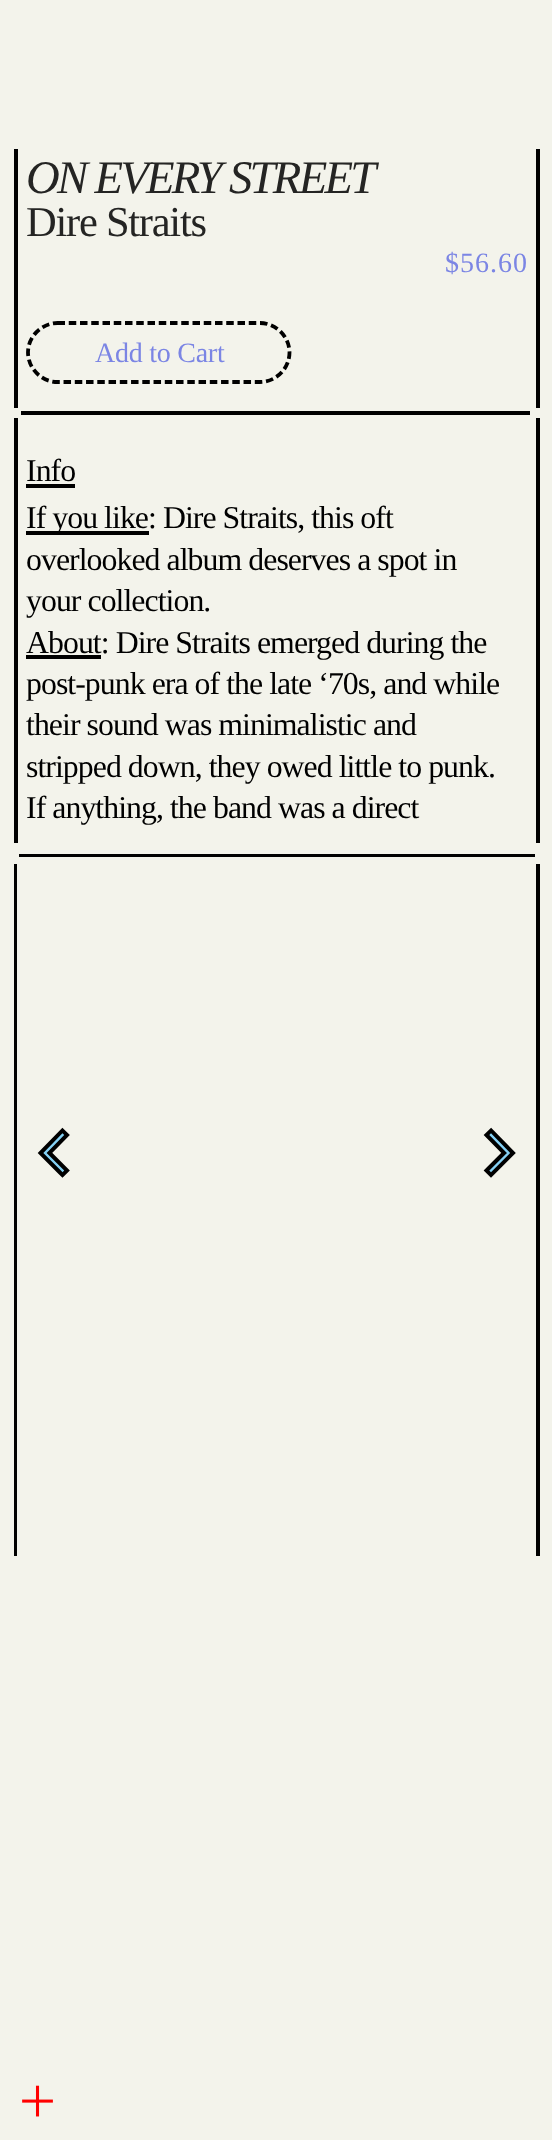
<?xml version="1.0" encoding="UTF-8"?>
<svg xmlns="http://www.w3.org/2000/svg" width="552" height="2140">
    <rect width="100%" height="100%" fill="#F3F3EB"/>
    <rect x="536" y="149" width="4" height="259" fill="#000000"/>
    <rect x="14" y="149" width="4" height="259" fill="#000000"/>
    <text x="26" y="193" font-family="Liberation Serif" font-size="46.75" font-style="italic" letter-spacing="-2.75" fill="#242423">ON EVERY STREET</text>
    <text x="26" y="236" font-family="Liberation Serif" font-size="42.5" letter-spacing="-1.25" fill="#242423">Dire Straits</text>
    <text x="445" y="272" font-family="Liberation Serif" font-size="28" letter-spacing="1" fill="#7B85E4">$56.60</text>
    <path d="M 57.5 323 H 260 C 276 323 289.5 336.5 289.5 352.5 C 289.5 368.5 276 382 260 382 H 57.5 C 41.5 382 28 368.5 28 352.5 C 28 336.5 41.5 323 57.5 323 Z" fill="none" stroke="#000000" stroke-width="3.8" stroke-dasharray="7.5 3.75"/>
    <text x="95" y="362" font-family="Liberation Serif" font-size="28" letter-spacing="-0.25" fill="#7B85E4">Add to Cart</text>
    <rect x="21" y="411" width="509" height="4" fill="#000000"/>
    <rect x="536" y="418" width="4" height="425" fill="#000000"/>
    <rect x="14" y="418" width="4" height="425" fill="#000000"/>
    <text x="26" y="481" font-family="Liberation Serif" font-size="31.8" letter-spacing="-0.95" fill="#000000">Info</text>
    <rect x="26" y="484" width="49" height="4" fill="#000000"/>
    <rect x="26" y="531" width="123" height="4" fill="#000000"/>
    <text font-family="Liberation Serif" font-size="31.8" letter-spacing="-0.95" fill="#000000">
        <tspan x="26" y="528">If you like: Dire Straits, this oft</tspan>
        <tspan x="26" y="570">overlooked album deserves a spot in</tspan>
        <tspan x="26" y="611">your collection.</tspan>
    </text>
    <rect x="26" y="655" width="75" height="4" fill="#000000"/>
    <text font-family="Liberation Serif" font-size="31.8" letter-spacing="-0.95" fill="#000000">
        <tspan x="26" y="653">About: Dire Straits emerged during the</tspan>
        <tspan x="26" y="694">post-punk era of the late ‘70s, and while</tspan>
        <tspan x="26" y="735">their sound was minimalistic and</tspan>
        <tspan x="26" y="777">stripped down, they owed little to punk.</tspan>
        <tspan x="26" y="818">If anything, the band was a direct</tspan>
    </text>
    <rect x="19" y="854" width="516" height="3" fill="#000000"/>
    <rect x="536" y="864" width="4" height="692" fill="#000000"/>
    <rect x="14" y="864" width="3" height="692" fill="#000000"/>
    <path d="M 62.5 1170.5 L 45 1153 L 62.5 1135" fill="none" stroke="#000000" stroke-width="10.4" stroke-linecap="square"/>
    <path d="M 62.5 1170.5 L 45 1153 L 62.5 1135" fill="none" stroke="#85D1F5" stroke-width="2.4" stroke-linecap="square"/>
    <path d="M 491 1170.5 L 508.5 1153 L 491 1135" fill="none" stroke="#000000" stroke-width="10.4" stroke-linecap="square"/>
    <path d="M 491 1170.5 L 508.5 1153 L 491 1135" fill="none" stroke="#85D1F5" stroke-width="2.4" stroke-linecap="square"/>
    <image x="22" y="2085" width="31" height="32" href="img_01.png"/>
</svg>
